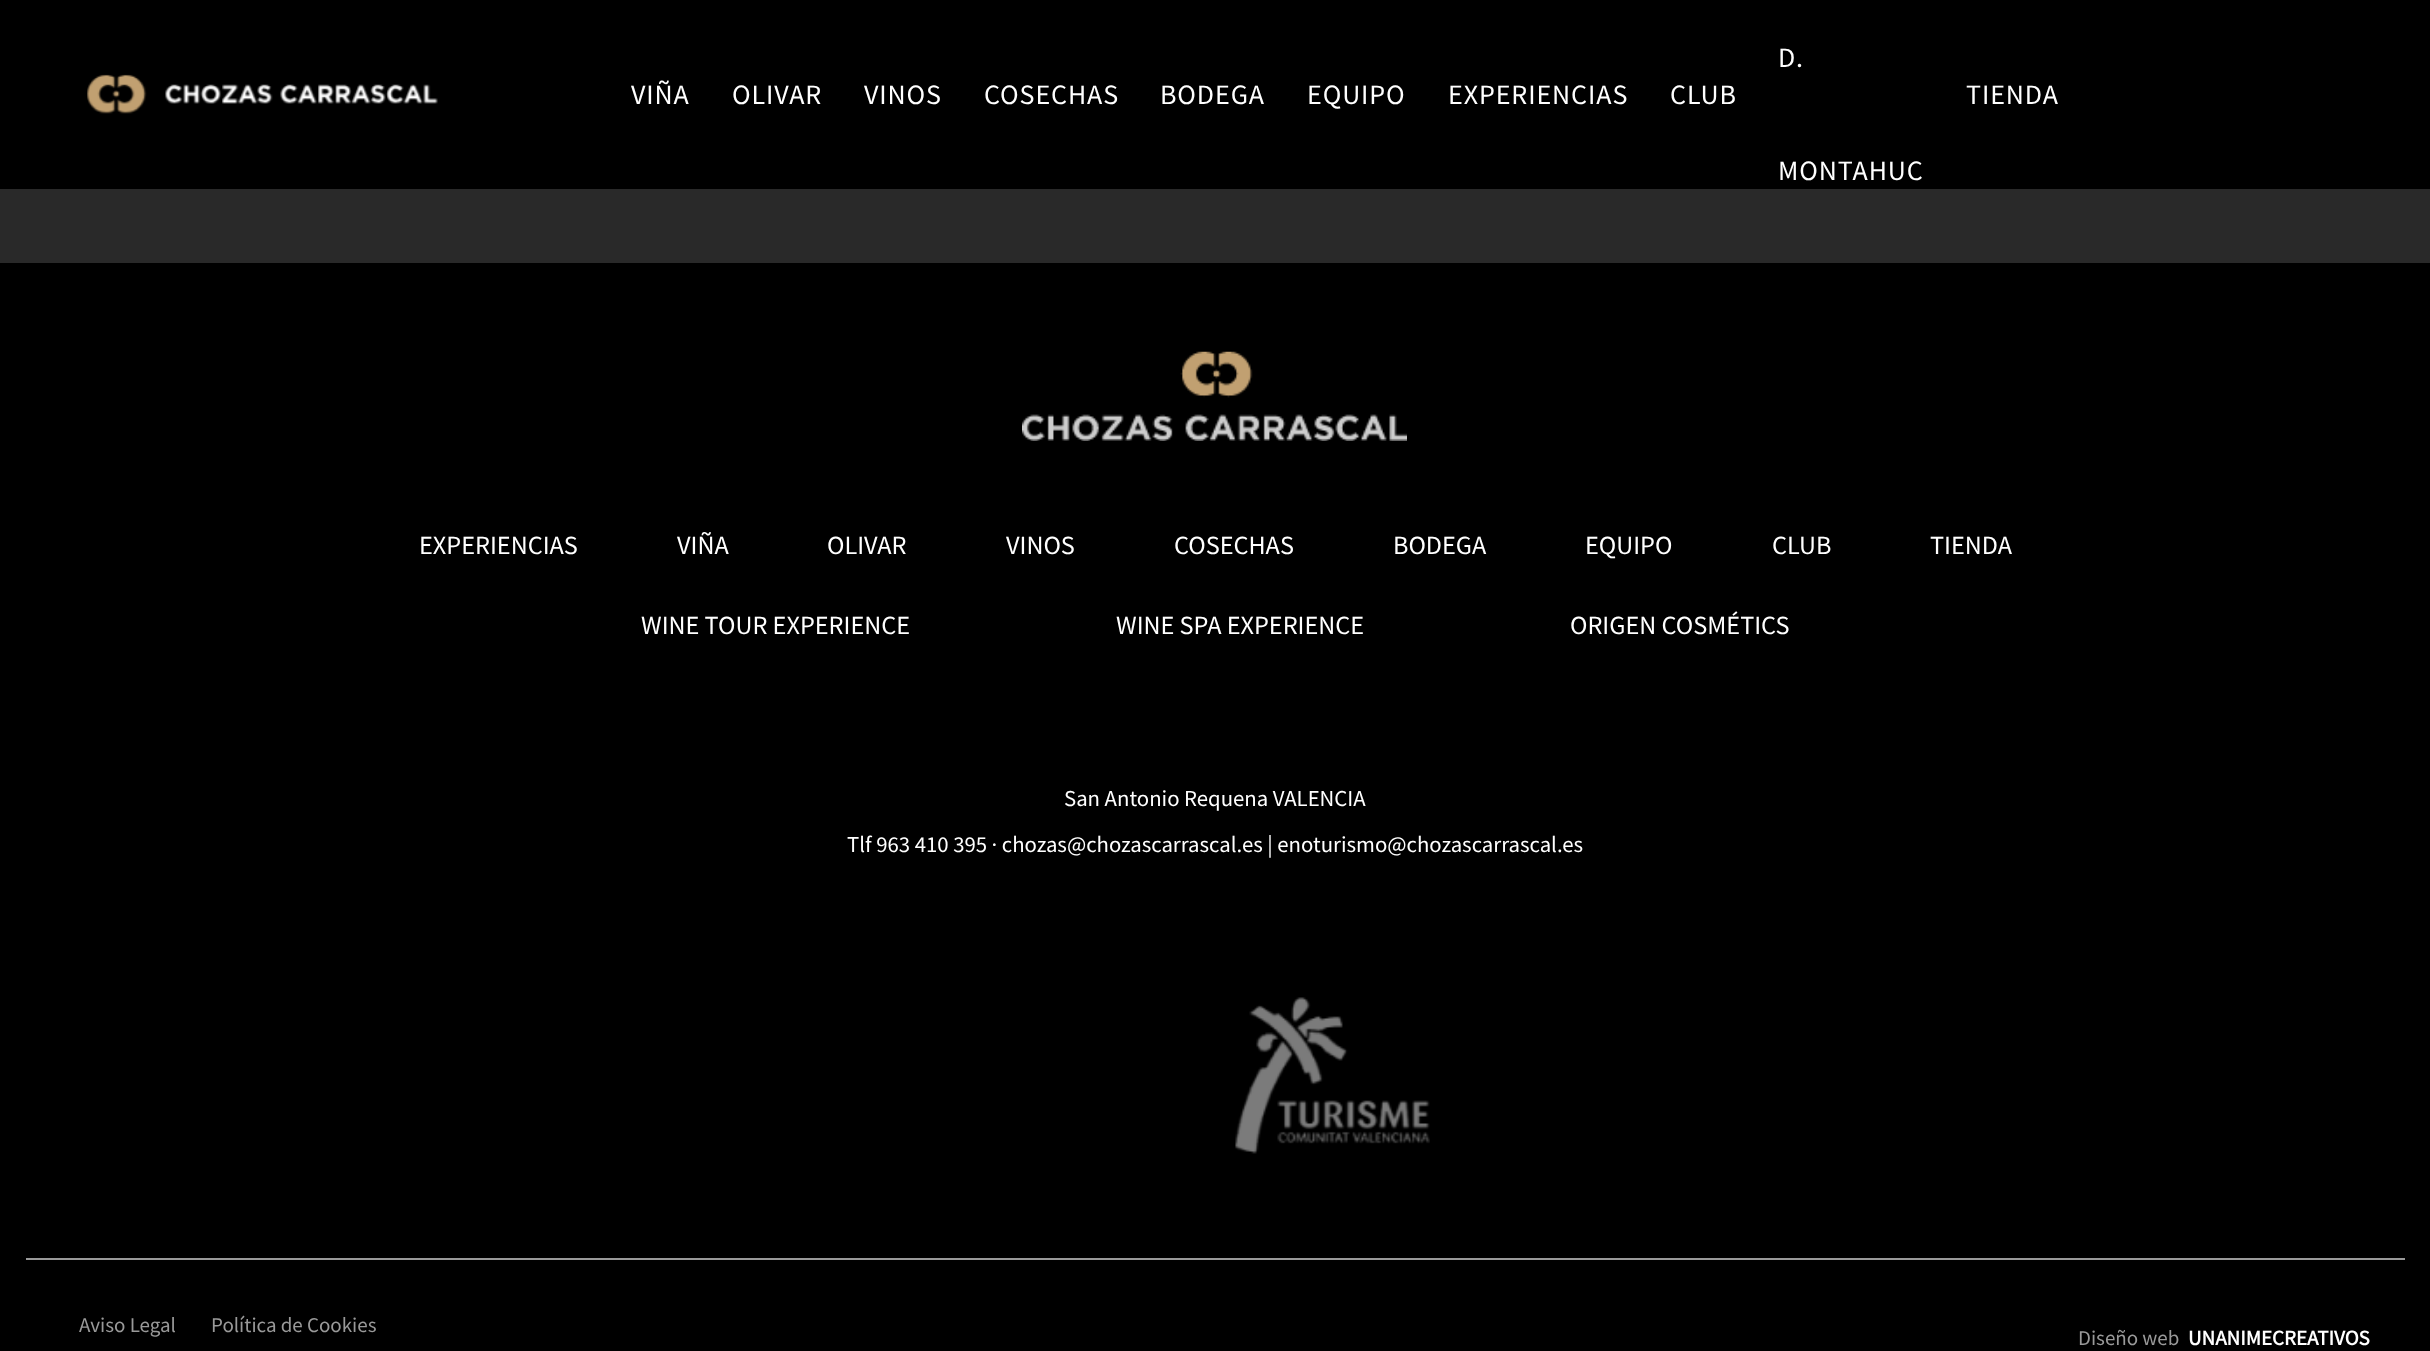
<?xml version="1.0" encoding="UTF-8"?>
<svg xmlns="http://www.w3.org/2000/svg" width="2430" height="1351">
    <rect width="100%" height="100%" fill="#292929"/>
    <rect x="0" y="0" width="2430" height="189" fill="#000000"/>
    <image x="87" y="74" width="351" height="40" href="img_01.png"/>
    <text x="631" y="104" font-family="Source Sans Pro" font-size="28" letter-spacing="0.9" fill="#FFFFFF">VIÑA</text>
    <text x="732" y="104" font-family="Source Sans Pro" font-size="28" letter-spacing="0.9" fill="#FFFFFF">OLIVAR</text>
    <text x="864" y="104" font-family="Source Sans Pro" font-size="28" letter-spacing="0.9" fill="#FFFFFF">VINOS</text>
    <text x="984" y="104" font-family="Source Sans Pro" font-size="28" letter-spacing="0.9" fill="#FFFFFF">COSECHAS</text>
    <text x="1160" y="104" font-family="Source Sans Pro" font-size="28" letter-spacing="0.9" fill="#FFFFFF">BODEGA</text>
    <text x="1307" y="104" font-family="Source Sans Pro" font-size="28" letter-spacing="0.9" fill="#FFFFFF">EQUIPO</text>
    <text x="1448" y="104" font-family="Source Sans Pro" font-size="28" letter-spacing="0.9" fill="#FFFFFF">EXPERIENCIAS</text>
    <text x="1670" y="104" font-family="Source Sans Pro" font-size="28" letter-spacing="0.9" fill="#FFFFFF">CLUB</text>
    <text x="1778" y="67" font-family="Source Sans Pro" font-size="28" letter-spacing="0.9" fill="#FFFFFF">D.</text>
    <text x="1778" y="180" font-family="Source Sans Pro" font-size="28" letter-spacing="0.9" fill="#FFFFFF">MONTAHUC</text>
    <text x="1966" y="104" font-family="Source Sans Pro" font-size="28" letter-spacing="0.9" fill="#FFFFFF">TIENDA</text>
    <rect x="0" y="263" width="2430" height="1088" fill="#000000"/>
    <image x="1022" y="351" width="385" height="90" href="img_02.png"/>
    <text x="419" y="554" font-family="Source Sans Pro" font-size="26.25" fill="#FFFFFF">EXPERIENCIAS</text>
    <text x="677" y="554" font-family="Source Sans Pro" font-size="26.25" fill="#FFFFFF">VIÑA</text>
    <text x="827" y="554" font-family="Source Sans Pro" font-size="26.25" fill="#FFFFFF">OLIVAR</text>
    <text x="1006" y="554" font-family="Source Sans Pro" font-size="26.25" fill="#FFFFFF">VINOS</text>
    <text x="1174" y="554" font-family="Source Sans Pro" font-size="26.25" fill="#FFFFFF">COSECHAS</text>
    <text x="1393" y="554" font-family="Source Sans Pro" font-size="26.25" fill="#FFFFFF">BODEGA</text>
    <text x="1585" y="554" font-family="Source Sans Pro" font-size="26.25" fill="#FFFFFF">EQUIPO</text>
    <text x="1772" y="554" font-family="Source Sans Pro" font-size="26.25" fill="#FFFFFF">CLUB</text>
    <text x="1930" y="554" font-family="Source Sans Pro" font-size="26.25" fill="#FFFFFF">TIENDA</text>
    <text x="641" y="634" font-family="Source Sans Pro" font-size="26.25" fill="#FFFFFF">WINE TOUR EXPERIENCE</text>
    <text x="1116" y="634" font-family="Source Sans Pro" font-size="26.25" fill="#FFFFFF">WINE SPA EXPERIENCE</text>
    <text x="1570" y="634" font-family="Source Sans Pro" font-size="26.25" fill="#FFFFFF">ORIGEN COSMÉTICS</text>
    <text x="1064" y="806" font-family="Source Sans Pro" font-size="22.75" fill="#FFFFFF">San Antonio Requena VALENCIA</text>
    <text x="847" y="852" font-family="Source Sans Pro" font-size="22.75" fill="#FFFFFF">Tlf 963 410 395 · chozas@chozascarrascal.es | enoturismo@chozascarrascal.es</text>
    <image x="1235" y="997" width="195" height="157" href="img_03.png"/>
    <rect x="26" y="1258" width="2379" height="2" fill="#999999"/>
    <text x="79" y="1332" font-family="Source Sans Pro" font-size="21" fill="#999999">Aviso Legal</text>
    <text x="211" y="1332" font-family="Source Sans Pro" font-size="21" fill="#999999">Política de Cookies</text>
    <text x="2078" y="1345" font-family="Source Sans Pro" font-size="21" fill="#999999">Diseño web</text>
    <text x="2188" y="1345" font-family="Source Sans Pro" font-size="21" font-weight="700" fill="#FFFFFF">UNANIMECREATIVOS</text>
</svg>
